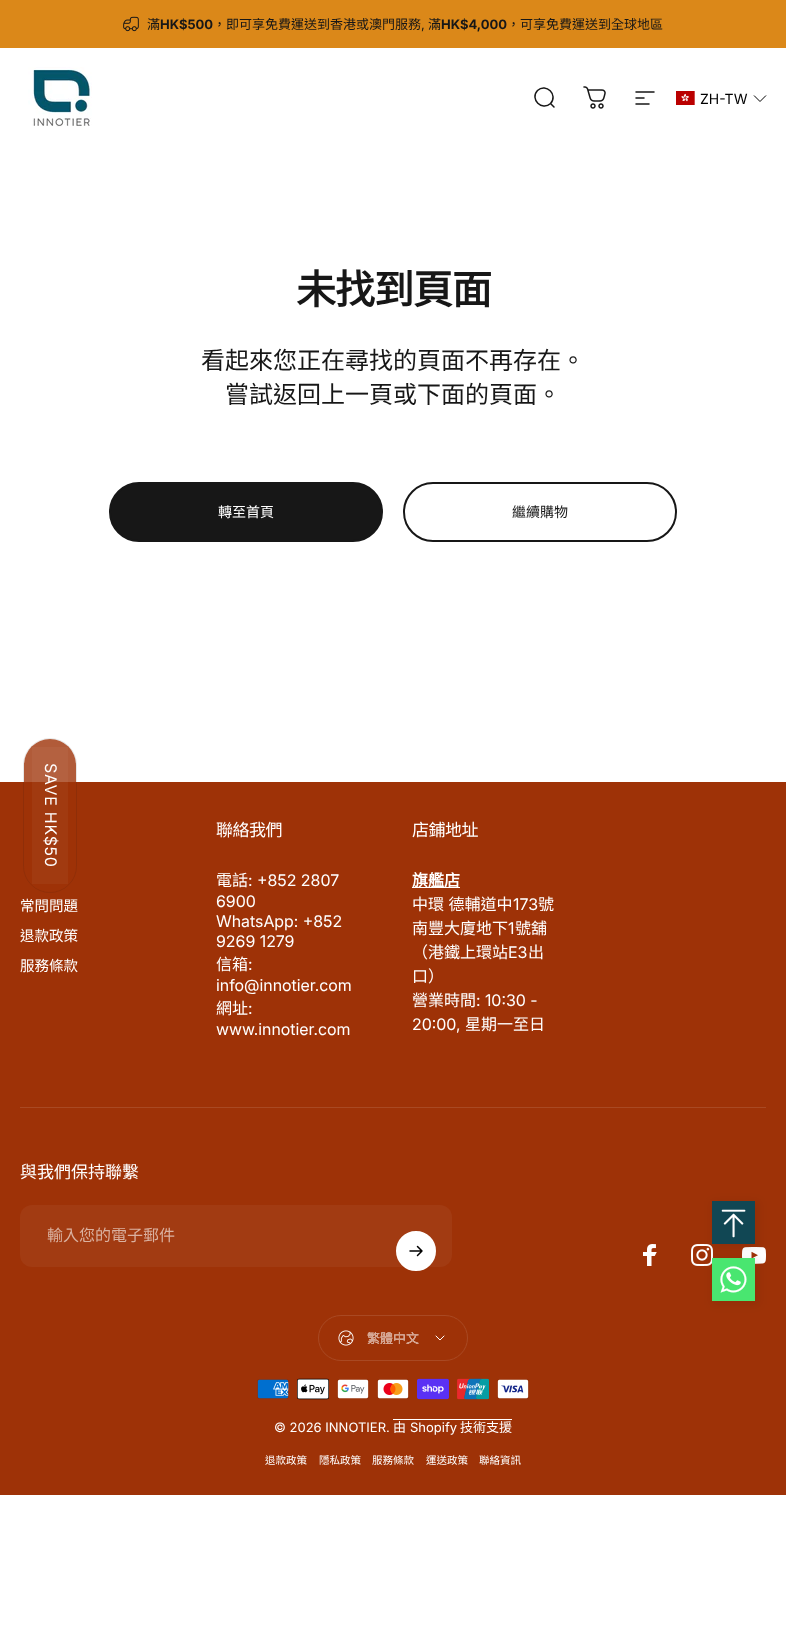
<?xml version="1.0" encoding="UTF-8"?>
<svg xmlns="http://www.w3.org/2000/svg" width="786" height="1631">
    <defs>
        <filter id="blur1" x="-50%" y="-200%" width="200%" height="500%"><feGaussianBlur stdDeviation="4.5"/></filter>
    </defs>
    <rect width="100%" height="100%" fill="#FFFFFF"/>
    <rect x="0" y="0" width="786" height="48" fill="#DB8819"/>
    <image x="123" y="16" width="16" height="16" href="img_01.png"/>
    <text x="147" y="29" font-family="Noto Sans CJK TC" font-size="13" fill="#171717">滿</text>
    <text x="160" y="29" font-family="Inter" font-size="13" font-weight="700" fill="#171717">HK$500</text>
    <text x="213" y="29" font-family="Noto Sans CJK TC" font-size="13" fill="#171717">，即可享免費運送到香港或澳門服務</text>
    <text x="421" y="29" font-family="Inter" font-size="13" fill="#171717">,</text>
    <text x="428" y="29" font-family="Noto Sans CJK TC" font-size="13" fill="#171717">滿</text>
    <text x="441" y="29" font-family="Inter" font-size="13" font-weight="700" fill="#171717">HK$4,000</text>
    <text x="507" y="29" font-family="Noto Sans CJK TC" font-size="13" fill="#171717">，可享免費運送到全球地區</text>
    <image x="28" y="67" width="64" height="60" href="img_02.png"/>
    <path d="M 554 107 L 550.5 103.5 M 550.5 103.5 C 558.5 95 546 82.5 537.5 90.5 C 529.5 99 542 111.5 550.5 103.5 Z" fill="none" stroke="#171717" stroke-width="1.5" stroke-linecap="round"/>
    <image x="583" y="86" width="23" height="23" href="img_03.png"/>
    <path d="M 636 92 H 654 M 636 98 H 644 M 636 104 H 649" fill="none" stroke="#171717" stroke-width="1.5" stroke-linecap="round"/>
    <image x="676" y="91" width="19" height="14" href="img_04.png"/>
    <text x="700" y="104" font-family="Inter" font-size="14" fill="#000000">ZH-TW</text>
    <path d="M 754 95.5 L 760 101.5 L 766 95.5" fill="none" stroke="#000000"/>
    <text x="296" y="304" font-family="Noto Sans CJK TC" font-size="40" font-weight="700" letter-spacing="-1" fill="#171717">未找到頁面</text>
    <text x="201" y="369" font-family="Noto Sans CJK TC" font-size="24" fill="#171717">看起來您正在尋找的頁面不再存在。</text>
    <text x="225" y="403" font-family="Noto Sans CJK TC" font-size="24" fill="#171717">嘗試返回上一頁或下面的頁面。</text>
    <rect x="110" y="483" width="272" height="58" rx="29" fill="#171717" stroke="#171717" stroke-width="2"/>
    <text x="218" y="517" font-family="Noto Sans CJK TC" font-size="14" fill="#FFFFFF">轉至首頁</text>
    <rect x="404" y="483" width="272" height="58" rx="29" fill="none" stroke="#171717" stroke-width="2"/>
    <text x="512" y="517" font-family="Noto Sans CJK TC" font-size="14" fill="#171717">繼續購物</text>
    <rect x="0" y="782" width="786" height="713" fill="#9E3207"/>
    <text x="20" y="911" font-family="Noto Sans CJK TC" font-size="14.5" fill="#FFFFFF">常問問題</text>
    <text x="20" y="941" font-family="Noto Sans CJK TC" font-size="14.5" fill="#FFFFFF">退款政策</text>
    <text x="20" y="971" font-family="Noto Sans CJK TC" font-size="14.5" fill="#FFFFFF">服務條款</text>
    <text x="216" y="836" font-family="Noto Sans CJK TC" font-size="17" letter-spacing="-0.5" fill="#FFFFFF">聯絡我們</text>
    <text x="216" y="886" font-family="Noto Sans CJK TC" font-size="16" fill="#FFFFFF">電話</text>
    <text x="248" y="886" font-family="'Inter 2'" font-size="16" fill="#FFFFFF">: +852 2807</text>
    <text font-family="'Inter 2'" font-size="16" fill="#FFFFFF">
        <tspan x="216" y="907">6900</tspan>
        <tspan x="216" y="927">WhatsApp: +852</tspan>
        <tspan x="216" y="947">9269 1279</tspan>
    </text>
    <text x="216" y="970" font-family="Noto Sans CJK TC" font-size="16" fill="#FFFFFF">信箱</text>
    <text x="248" y="970" font-family="'Inter 2'" font-size="16" fill="#FFFFFF">:</text>
    <text x="216" y="991" font-family="'Inter 2'" font-size="16" fill="#FFFFFF">info@innotier.com</text>
    <text x="216" y="1014" font-family="Noto Sans CJK TC" font-size="16" fill="#FFFFFF">網址</text>
    <text x="248" y="1014" font-family="'Inter 2'" font-size="16" fill="#FFFFFF">:</text>
    <text x="216" y="1035" font-family="'Inter 2'" font-size="16" fill="#FFFFFF">www.innotier.com</text>
    <text x="412" y="836" font-family="Noto Sans CJK TC" font-size="17" letter-spacing="-0.5" fill="#FFFFFF">店鋪地址</text>
    <rect x="412" y="887" width="48" height="1" fill="#FFFFFF"/>
    <text x="412" y="886" font-family="Noto Sans CJK TC" font-size="16" font-weight="700" fill="#FFFFFF">旗艦店</text>
    <text x="412" y="910" word-spacing="1" font-family="Noto Sans CJK TC" font-size="16" fill="#FFFFFF">中環 德輔道中</text>
    <text x="513" y="910" font-family="'Inter 2'" font-size="16" fill="#FFFFFF">173</text>
    <text x="538" y="910" font-family="Noto Sans CJK TC" font-size="16" fill="#FFFFFF">號</text>
    <text x="412" y="934" font-family="Noto Sans CJK TC" font-size="16" fill="#FFFFFF">南豐大廈地下</text>
    <text x="508" y="934" font-family="'Inter 2'" font-size="16" fill="#FFFFFF">1</text>
    <text x="515" y="934" font-family="Noto Sans CJK TC" font-size="16" fill="#FFFFFF">號舖</text>
    <text x="412" y="958" font-family="Noto Sans CJK TC" font-size="16" fill="#FFFFFF">（港鐵上環站</text>
    <text x="508" y="958" font-family="'Inter 2'" font-size="16" fill="#FFFFFF">E3</text>
    <text x="528" y="958" font-family="Noto Sans CJK TC" font-size="16" fill="#FFFFFF">出</text>
    <text font-family="Noto Sans CJK TC" font-size="16" fill="#FFFFFF">
        <tspan x="412" y="982">口）</tspan>
        <tspan x="412" y="1006">營業時間</tspan>
    </text>
    <text x="476" y="1006" font-family="'Inter 2'" font-size="16" fill="#FFFFFF">: 10:30 -</text>
    <text x="412" y="1030" font-family="'Inter 2'" font-size="16" fill="#FFFFFF">20:00,</text>
    <text x="465" y="1030" font-family="Noto Sans CJK TC" font-size="16" fill="#FFFFFF">星期一至日</text>
    <rect x="20" y="1107" width="746" height="1" fill="#A94923"/>
    <text x="20" y="1178" font-family="Noto Sans CJK TC" font-size="17" fill="#FFFFFF">與我們保持聯繫</text>
    <rect x="20" y="1205" width="432" height="62" rx="12" fill="#A23B12"/>
    <text x="47" y="1241" font-family="Noto Sans CJK TC" font-size="16" fill="#DAB1A0">輸入您的電子郵件</text>
    <circle cx="416" cy="1251" r="19" fill="#FFFFFF" stroke="#FFFFFF" stroke-width="2"/>
    <path d="M 410 1251 H 422 M 422 1251 L 417.5 1246.5 M 422 1251 L 417.5 1255.5" fill="none" stroke="#000000" stroke-width="1.5" stroke-linecap="round" stroke-linejoin="round"/>
    <image x="643" y="1244" width="14" height="22" href="img_05.png"/>
    <image x="691" y="1244" width="22" height="22" href="img_06.png"/>
    <image x="742" y="1247" width="24" height="17" href="img_07.png"/>
    <rect x="318.5" y="1315.5" width="149" height="45" rx="22.5" fill="none" stroke="#A94923"/>
    <image x="338" y="1330" width="16" height="16" href="img_08.png"/>
    <text x="367" y="1343" font-family="Noto Sans CJK TC" font-size="13" fill="#FFFFFF">繁體中文</text>
    <text x="367" y="1343" font-family="Noto Sans CJK TC" font-size="13" fill="#D09B86">繁體中文</text>
    <path d="M 436 1336 L 440 1340 L 444 1336" fill="none" stroke="#FFFFFF" stroke-linecap="round" stroke-linejoin="round"/>
    <image x="257" y="1379" width="32" height="20" href="img_09.png"/>
    <image x="297" y="1378" width="32" height="22" href="img_10.png"/>
    <image x="337" y="1379" width="32" height="20" href="img_11.png"/>
    <image x="377" y="1379" width="32" height="20" href="img_12.png"/>
    <image x="417" y="1378" width="32" height="22" href="img_13.png"/>
    <image x="457" y="1378" width="32" height="22" href="img_14.png"/>
    <image x="497" y="1379" width="32" height="20" href="img_15.png"/>
    <text x="274" y="1432" font-family="Inter" font-size="13" fill="#FFFFFF">© 2026 INNOTIER.</text>
    <text x="393" y="1432" font-family="Noto Sans CJK TC" font-size="13" fill="#FFFFFF">由</text>
    <rect x="393" y="1419" width="119" height="1" fill="#FFFFFF"/>
    <text x="410" y="1432" font-family="Inter" font-size="13" fill="#FFFFFF">Shopify</text>
    <text x="460" y="1432" font-family="Noto Sans CJK TC" font-size="13" fill="#FFFFFF">技術支援</text>
    <text x="265" y="1464" font-family="Noto Sans CJK TC" font-size="10.5" fill="#FFFFFF">退款政策</text>
    <text x="319" y="1464" font-family="Noto Sans CJK TC" font-size="10.5" fill="#FFFFFF">隱私政策</text>
    <text x="372" y="1464" font-family="Noto Sans CJK TC" font-size="10.5" fill="#FFFFFF">服務條款</text>
    <text x="426" y="1464" font-family="Noto Sans CJK TC" font-size="10.5" fill="#FFFFFF">運送政策</text>
    <text x="479" y="1464" font-family="Noto Sans CJK TC" font-size="10.5" fill="#FFFFFF">聯絡資訊</text>
    <rect x="23.5" y="738.5" width="53" height="154" rx="26.5" fill="none" stroke="#171717" stroke-opacity="0.1"/>
    <rect x="24" y="739" width="52" height="153" rx="26" fill="#9E3207" fill-opacity="0.8"/>
    <rect x="32" y="747" width="36" height="137" fill="#FFFFFF" fill-opacity="0.04"/>
    <text x="45" y="763" transform="rotate(90 45 763)" font-family="'Inter 2'" font-size="16" letter-spacing="0.75" fill="#FFFFFF">SAVE HK$50</text>
    <rect x="712" y="1258" width="47" height="47" fill="#000000" fill-opacity="0.07" filter="url(#blur1)"/>
    <image x="712" y="1258" width="43" height="43" href="img_17.png"/>
    <rect x="712" y="1201" width="47" height="47" fill="#000000" fill-opacity="0.07" filter="url(#blur1)"/>
    <image x="712" y="1201" width="43" height="43" href="img_16.png"/>
</svg>
